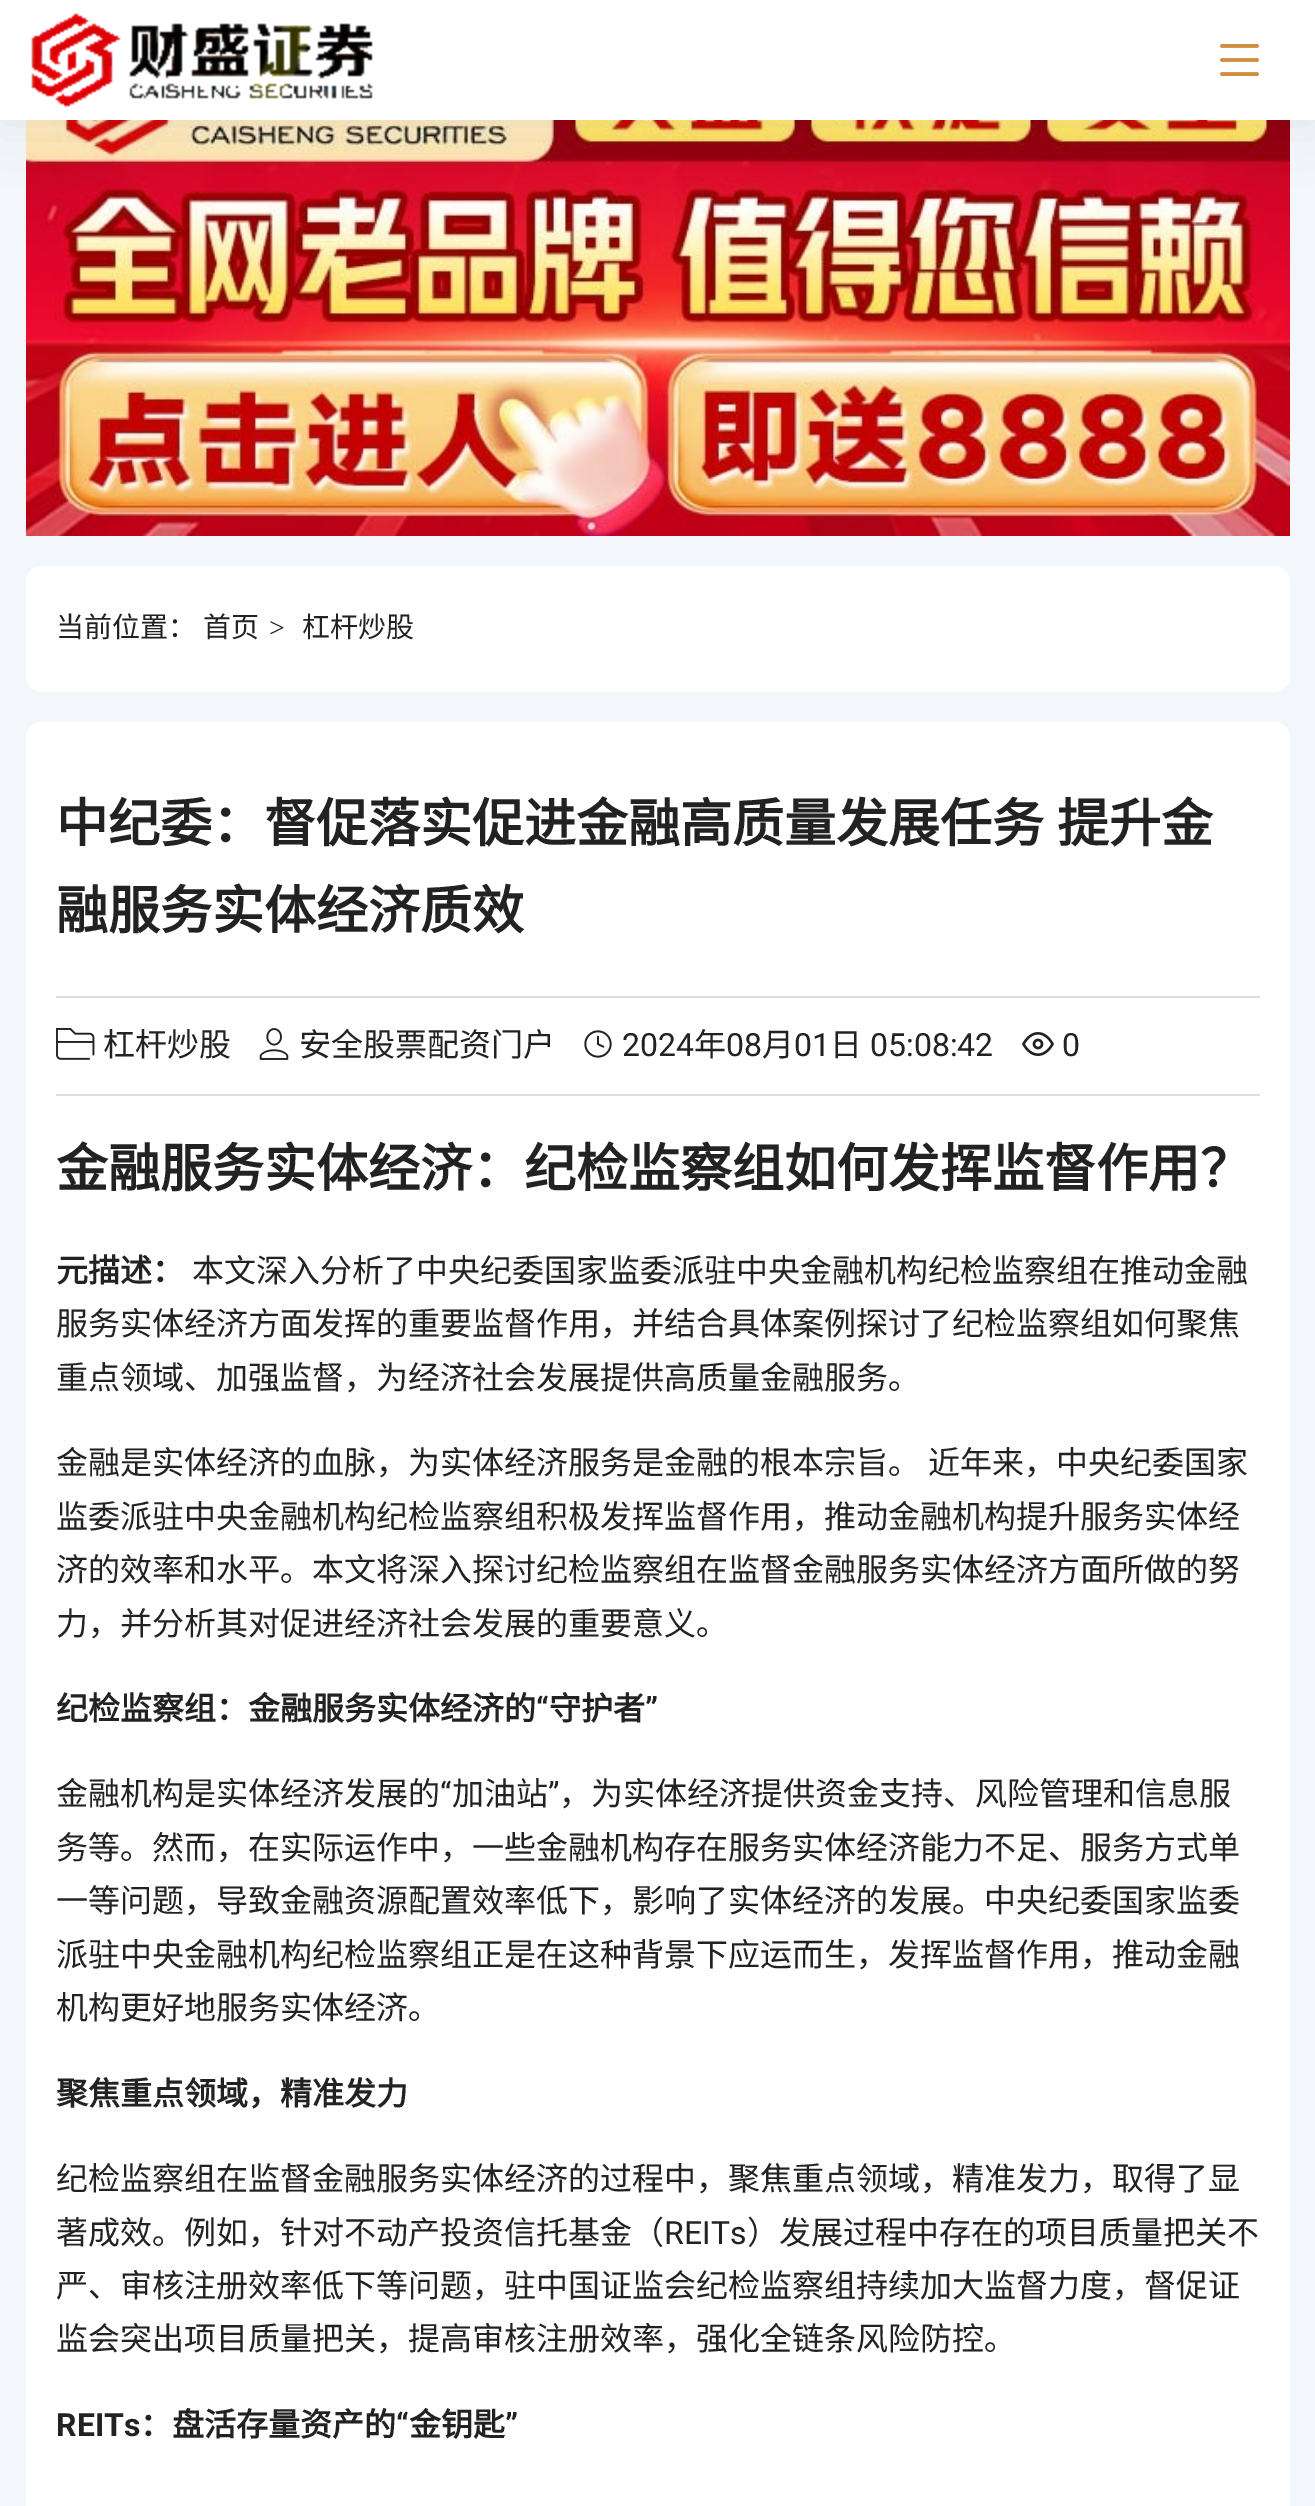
%!PS
<< /PageSize [1315 2506] /PageUsesTransparency true >> setpagedevice
/mt/moveto load def
/fl/fill load def
/co { dup -16 bitshift 255 div exch dup -8 bitshift 255 and 255 div exch 255 and 255 div setrgbcolor } def
/fn { [ exch dup neg 0 0 3 -1 roll 0 0 ] selectfont } def
/tx { co fn moveto show } def
/bx { co rectfill } def
/al { dup .setfillconstantalpha .setstrokeconstantalpha } def
/rr { 5 dict begin { /r /h /w /y /x } { exch def } forall
  x r add y moveto x w add y 2 copy h add r arct x w add y h add x 1 index r arct
  x y h add x y r arct x y 2 copy exch w add exch r arct closepath end } def
/sh { 12 dict begin { /a /b /q /h /w /y /x } { exch def } forall gsave /was 0 def
  9 -2 -9 { dup b mul 4 div /e exch def 1 sub .425 mul 2.718 exch exp 1 add a .99 .min exch div /now exch def
    1 1 now sub 1 was sub div sub al /was now def
    w h .min e 2 mul add 0 gt { x e sub y e sub w e 2 mul add h e 2 mul add
      q e add b .6 mul add w h .min 2 div e add .min 0 .max rr fill } if } for grestore end } def
/im { 5 dict begin { /h /w /y /x /name } { exch def } forall
  gsave x y translate w h scale
  w h 8 [w 0 0 h 0 0] name (r) file false 3 colorimage grestore end } def
0 .pushpdf14devicefilter
0 2506 translate 1 -1 scale
4 setmiterlimit
0 0 1315 2506 16#F3F6FB bx
(media/3.raw) 26 120 1264 416 im
16#000000 co
0 0 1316 120 0 30 .07 sh
0 0 1315 120 16#FFFFFF bx
(media/1.raw) 31 13 342 94 im
(media/2.raw) 1220 44 39 32 im
26 566 1264 126 16 rr fl
26 722 1264 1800 16 rr fl
56 996 1204 2 16#DDDDDD bx
56 1094 1204 2 16#DDDDDD bx
(media/4.raw) 56 1028 39 32 im
(media/5.raw) 259 1028 30 32 im
(media/6.raw) 584 1030 28 28 im
(media/7.raw) 1022 1032 32 24 im
(当前位置：) 56 637 /NotoSansCJKSC-Regular 28 16#222222 tx
(首页) 203 637 /NotoSansCJKSC-Regular 28 16#222222 tx
(>) 269 637 /LiberationSerif-Regular 28 16#222222 tx
(杠杆炒股) 302 637 /NotoSansCJKSC-Regular 28 16#222222 tx
/NotoSansCJKSC-Bold 52 fn
56 842 mt 1 0 32 (中纪委：督促落实促进金融高质量发展任务 提升金) widthshow
(融服务实体经济质效) 56 929 /NotoSansCJKSC-Bold 52 16#222222 tx
(杠杆炒股) 103 1056 /NotoSansCJKSC-Regular 32 16#222222 tx
(安全股票配资门户) 299 1056 /NotoSansCJKSC-Regular 32 16#222222 tx
(2024) 622 1056 /Roboto-Regular 32 16#222222 tx
(年) 694 1056 /NotoSansCJKSC-Regular 32 16#222222 tx
(08) 726 1056 /Roboto-Regular 32 16#222222 tx
(月) 762 1056 /NotoSansCJKSC-Regular 32 16#222222 tx
(01) 794 1056 /Roboto-Regular 32 16#222222 tx
(日) 830 1056 /NotoSansCJKSC-Regular 32 16#222222 tx
(05:08:42) 870 1056 /Roboto-Regular 32 16#222222 tx
(0) 1062 1056 /Roboto-Regular 32 16#222222 tx
(金融服务实体经济：纪检监察组如何发挥监督作用？) 56 1187 /NotoSansCJKSC-Bold 52 16#222222 tx
(元描述：) 56 1282 /NotoSansCJKSC-Bold 32 16#222222 tx
(本文深入分析了中央纪委国家监委派驻中央金融机构纪检监察组在推动金融) 192 1282 /NotoSansCJKSC-Regular 32 16#222222 tx
(服务实体经济方面发挥的重要监督作用，并结合具体案例探讨了纪检监察组如何聚焦) 56 1335 /NotoSansCJKSC-Regular 32 16#222222 tx
(重点领域、加强监督，为经济社会发展提供高质量金融服务。) 56 1389 /NotoSansCJKSC-Regular 32 16#222222 tx
56 1474 mt 1 0 32 (金融是实体经济的血脉，为实体经济服务是金融的根本宗旨。 近年来，中央纪委国家) widthshow
(监委派驻中央金融机构纪检监察组积极发挥监督作用，推动金融机构提升服务实体经) 56 1528 /NotoSansCJKSC-Regular 32 16#222222 tx
(济的效率和水平。本文将深入探讨纪检监察组在监督金融服务实体经济方面所做的努) 56 1581 /NotoSansCJKSC-Regular 32 16#222222 tx
(力，并分析其对促进经济社会发展的重要意义。) 56 1635 /NotoSansCJKSC-Regular 32 16#222222 tx
(纪检监察组：金融服务实体经济的) 56 1720 /NotoSansCJKSC-Bold 32 16#222222 tx
(“) 536 1720 /Roboto-Bold 32 16#222222 tx
(守护者) 549 1720 /NotoSansCJKSC-Bold 32 16#222222 tx
(”) 645 1720 /Roboto-Bold 32 16#222222 tx
(金融机构是实体经济发展的) 56 1805 /NotoSansCJKSC-Regular 32 16#222222 tx
(“) 440 1805 /Roboto-Regular 32 16#222222 tx
(加油站) 452 1805 /NotoSansCJKSC-Regular 32 16#222222 tx
(”) 548 1805 /Roboto-Regular 32 16#222222 tx
(，为实体经济提供资金支持、风险管理和信息服) 559 1805 /NotoSansCJKSC-Regular 32 16#222222 tx
(务等。然而，在实际运作中，一些金融机构存在服务实体经济能力不足、服务方式单) 56 1859 /NotoSansCJKSC-Regular 32 16#222222 tx
(一等问题，导致金融资源配置效率低下，影响了实体经济的发展。中央纪委国家监委) 56 1912 /NotoSansCJKSC-Regular 32 16#222222 tx
(派驻中央金融机构纪检监察组正是在这种背景下应运而生，发挥监督作用，推动金融) 56 1966 /NotoSansCJKSC-Regular 32 16#222222 tx
(机构更好地服务实体经济。) 56 2019 /NotoSansCJKSC-Regular 32 16#222222 tx
(聚焦重点领域，精准发力) 56 2105 /NotoSansCJKSC-Bold 32 16#222222 tx
(纪检监察组在监督金融服务实体经济的过程中，聚焦重点领域，精准发力，取得了显) 56 2190 /NotoSansCJKSC-Regular 32 16#222222 tx
(著成效。例如，针对不动产投资信托基金（) 56 2244 /NotoSansCJKSC-Regular 32 16#222222 tx
(REITs) 664 2244 /Roboto-Regular 32 16#222222 tx
(）发展过程中存在的项目质量把关不) 747 2244 /NotoSansCJKSC-Regular 32 16#222222 tx
(严、审核注册效率低下等问题，驻中国证监会纪检监察组持续加大监督力度，督促证) 56 2297 /NotoSansCJKSC-Regular 32 16#222222 tx
(监会突出项目质量把关，提高审核注册效率，强化全链条风险防控。) 56 2350 /NotoSansCJKSC-Regular 32 16#222222 tx
(REITs) 56 2436 /Roboto-Bold 32 16#222222 tx
(：盘活存量资产的) 140 2436 /NotoSansCJKSC-Bold 32 16#222222 tx
(“) 396 2436 /Roboto-Bold 32 16#222222 tx
(金钥匙) 409 2436 /NotoSansCJKSC-Bold 32 16#222222 tx
(”) 505 2436 /Roboto-Bold 32 16#222222 tx
.poppdf14devicefilter showpage
